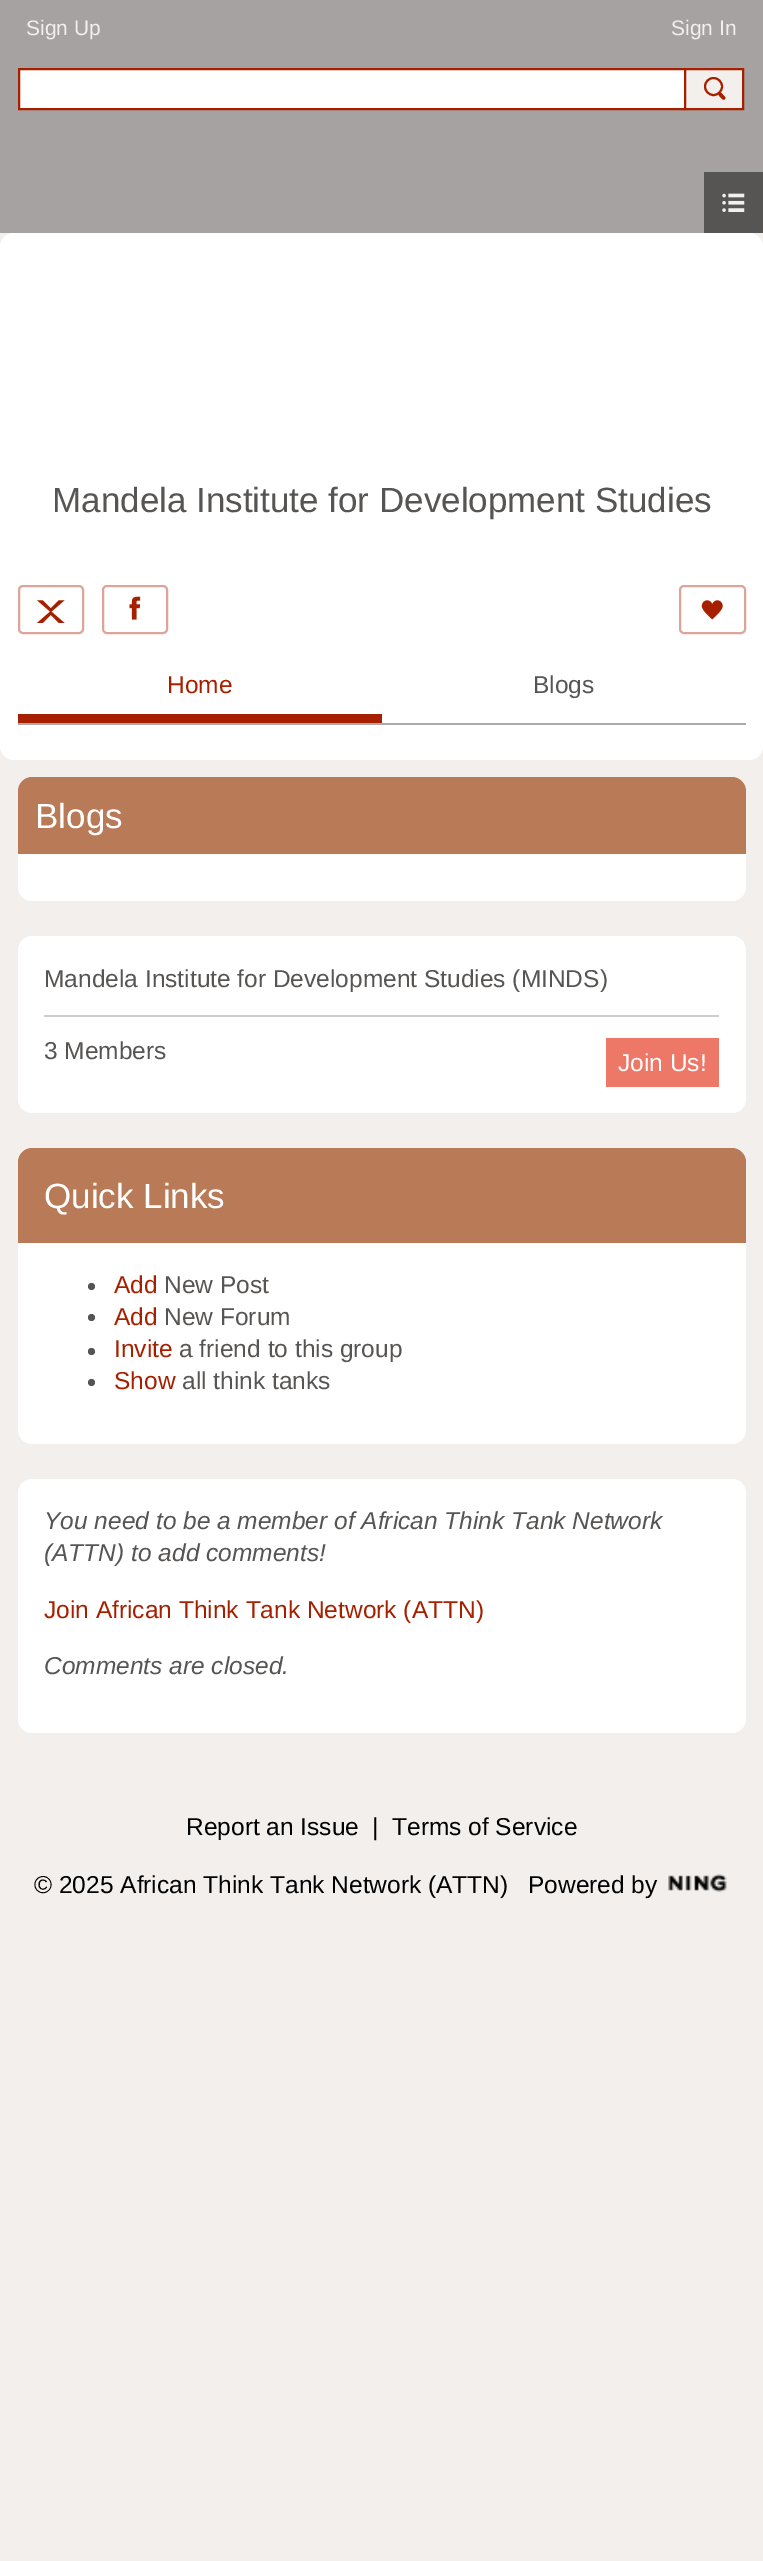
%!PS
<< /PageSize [763 2561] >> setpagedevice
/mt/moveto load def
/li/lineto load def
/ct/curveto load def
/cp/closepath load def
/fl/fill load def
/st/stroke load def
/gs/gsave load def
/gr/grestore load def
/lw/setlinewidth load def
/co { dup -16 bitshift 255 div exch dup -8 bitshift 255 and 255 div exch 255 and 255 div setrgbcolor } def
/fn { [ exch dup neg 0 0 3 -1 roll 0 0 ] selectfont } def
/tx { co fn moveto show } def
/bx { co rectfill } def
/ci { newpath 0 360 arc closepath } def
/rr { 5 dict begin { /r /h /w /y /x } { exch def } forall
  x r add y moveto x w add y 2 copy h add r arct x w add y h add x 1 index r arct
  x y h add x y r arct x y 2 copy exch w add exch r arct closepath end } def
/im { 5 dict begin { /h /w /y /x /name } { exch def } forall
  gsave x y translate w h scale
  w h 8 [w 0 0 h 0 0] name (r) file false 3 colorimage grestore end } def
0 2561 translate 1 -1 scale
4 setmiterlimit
0 0 763 2561 16#F2EFED bx
0 0 763 233 16#A6A2A1 bx
16#FFFFFF co
19 69 mt 685 69 li 685 109 li 19 109 li cp gs fl gr
16#A62000 co
2 lw
st
16#F2EFED co
685 69 mt 743 69 li 743 109 li 685 109 li cp gs fl gr
16#A62000 co
st
713.5 86.5 8.5 ci st
721.5 93 mt 725 97 li 725.5 97.5 725.5 98.5 725 99 ct 723.5 101.5 720 97 719 95.5 ct 717 94 719.5 91.5 721.5 93 ct cp fl
704 172 59 61 16#575554 bx
(media/1.raw) 722 193 23 19 im
16#FFFFFF co
0 233 763 527 14 rr fl
16#DBA699 co
19 586 64 47 4 rr st
(media/2.raw) 36 600 29 23 im
103 586 64 47 4 rr st
(media/3.raw) 129 596 12 24 im
680 586 65 47 4 rr st
(media/4.raw) 701 600 22 20 im
18 723 728 2 16#AAAAAA bx
18 714 364 9 16#A62000 bx
16#FFFFFF co
18 777 728 124 14 rr fl
16#B97A57 co
32 777 mt 732 777 li 739.5 777 746 783.5 746 791 ct 746 854 li 18 854 li 18 791 li 18 783.5 24.5 777 32 777 ct cp fl
16#FFFFFF co
18 936 728 177 14 rr fl
44 1015 675 2 16#CCCCCC bx
606 1038 113 49 16#ED7868 bx
16#FFFFFF co
18 1148 728 296 14 rr fl
16#B97A57 co
32 1148 mt 732 1148 li 739.5 1148 746 1154.5 746 1162 ct 746 1243 li 18 1243 li 18 1162 li 18 1154.5 24.5 1148 32 1148 ct cp fl
16#575554 co
91.5 1286.5 3.5 ci fl
91.5 1317.5 3.5 ci fl
91.5 1351.5 3.5 ci fl
91.5 1382.5 3.5 ci fl
16#FFFFFF co
18 1479 728 254 14 rr fl
(media/5.raw) 668 1874 59 19 im
(Sign Up) 26 35 /LiberationSans-Regular 21 16#F2EFED tx
(Sign In) 671 35 /LiberationSans-Regular 21 16#F2EFED tx
(Mandela Institute for Development Studies) 52 512 /LiberationSans-Regular 35 16#575554 tx
(Home) 167 693 /LiberationSans-Regular 24.5 16#A62000 tx
(Blogs) 533 693 /LiberationSans-Regular 24.5 16#575554 tx
(Blogs) 35 828 /LiberationSans-Regular 35 16#FFFFFF tx
(Mandela Institute for Development Studies \(MINDS\)) 44 987 /LiberationSans-Regular 24.5 16#575554 tx
(3 Members) 44 1059 /LiberationSans-Regular 24.5 16#575554 tx
(Join Us!) 618 1071 /LiberationSans-Regular 24.5 16#FFFFFF tx
(Quick Links) 44 1208 /LiberationSans-Regular 35 16#FFFFFF tx
(Add) 114 1293 /LiberationSans-Regular 24.5 16#A62000 tx
(New Post) 164 1293 /LiberationSans-Regular 24.5 16#575554 tx
(Add) 114 1325 /LiberationSans-Regular 24.5 16#A62000 tx
(New Forum) 164 1325 /LiberationSans-Regular 24.5 16#575554 tx
(Invite) 114 1357 /LiberationSans-Regular 24.5 16#A62000 tx
(a friend to this group) 179 1357 /LiberationSans-Regular 24.5 16#575554 tx
(Show) 114 1389 /LiberationSans-Regular 24.5 16#A62000 tx
(all think tanks) 182 1389 /LiberationSans-Regular 24.5 16#575554 tx
(You need to be a member of African Think Tank Network) 44 1529 /LiberationSans-Italic 24.5 16#575554 tx
(\(ATTN\) to add comments!) 44 1561 /LiberationSans-Italic 24.5 16#575554 tx
(Join African Think Tank Network \(ATTN\)) 44 1618 /LiberationSans-Regular 24.5 16#A62000 tx
(Comments are closed.) 44 1674 /LiberationSans-Italic 24.5 16#575554 tx
(Report an Issue) 186 1835 /LiberationSans-Regular 24.5 16#000000 tx
(|) 372 1835 /LiberationSans-Regular 24.5 16#000000 tx
(Terms of Service) 392 1835 /LiberationSans-Regular 24.5 16#000000 tx
(© 2025 African Think Tank Network \(ATTN\)) 34 1893 /LiberationSans-Regular 24.5 16#000000 tx
(Powered by) 528 1893 /LiberationSans-Regular 24.5 16#000000 tx
showpage
